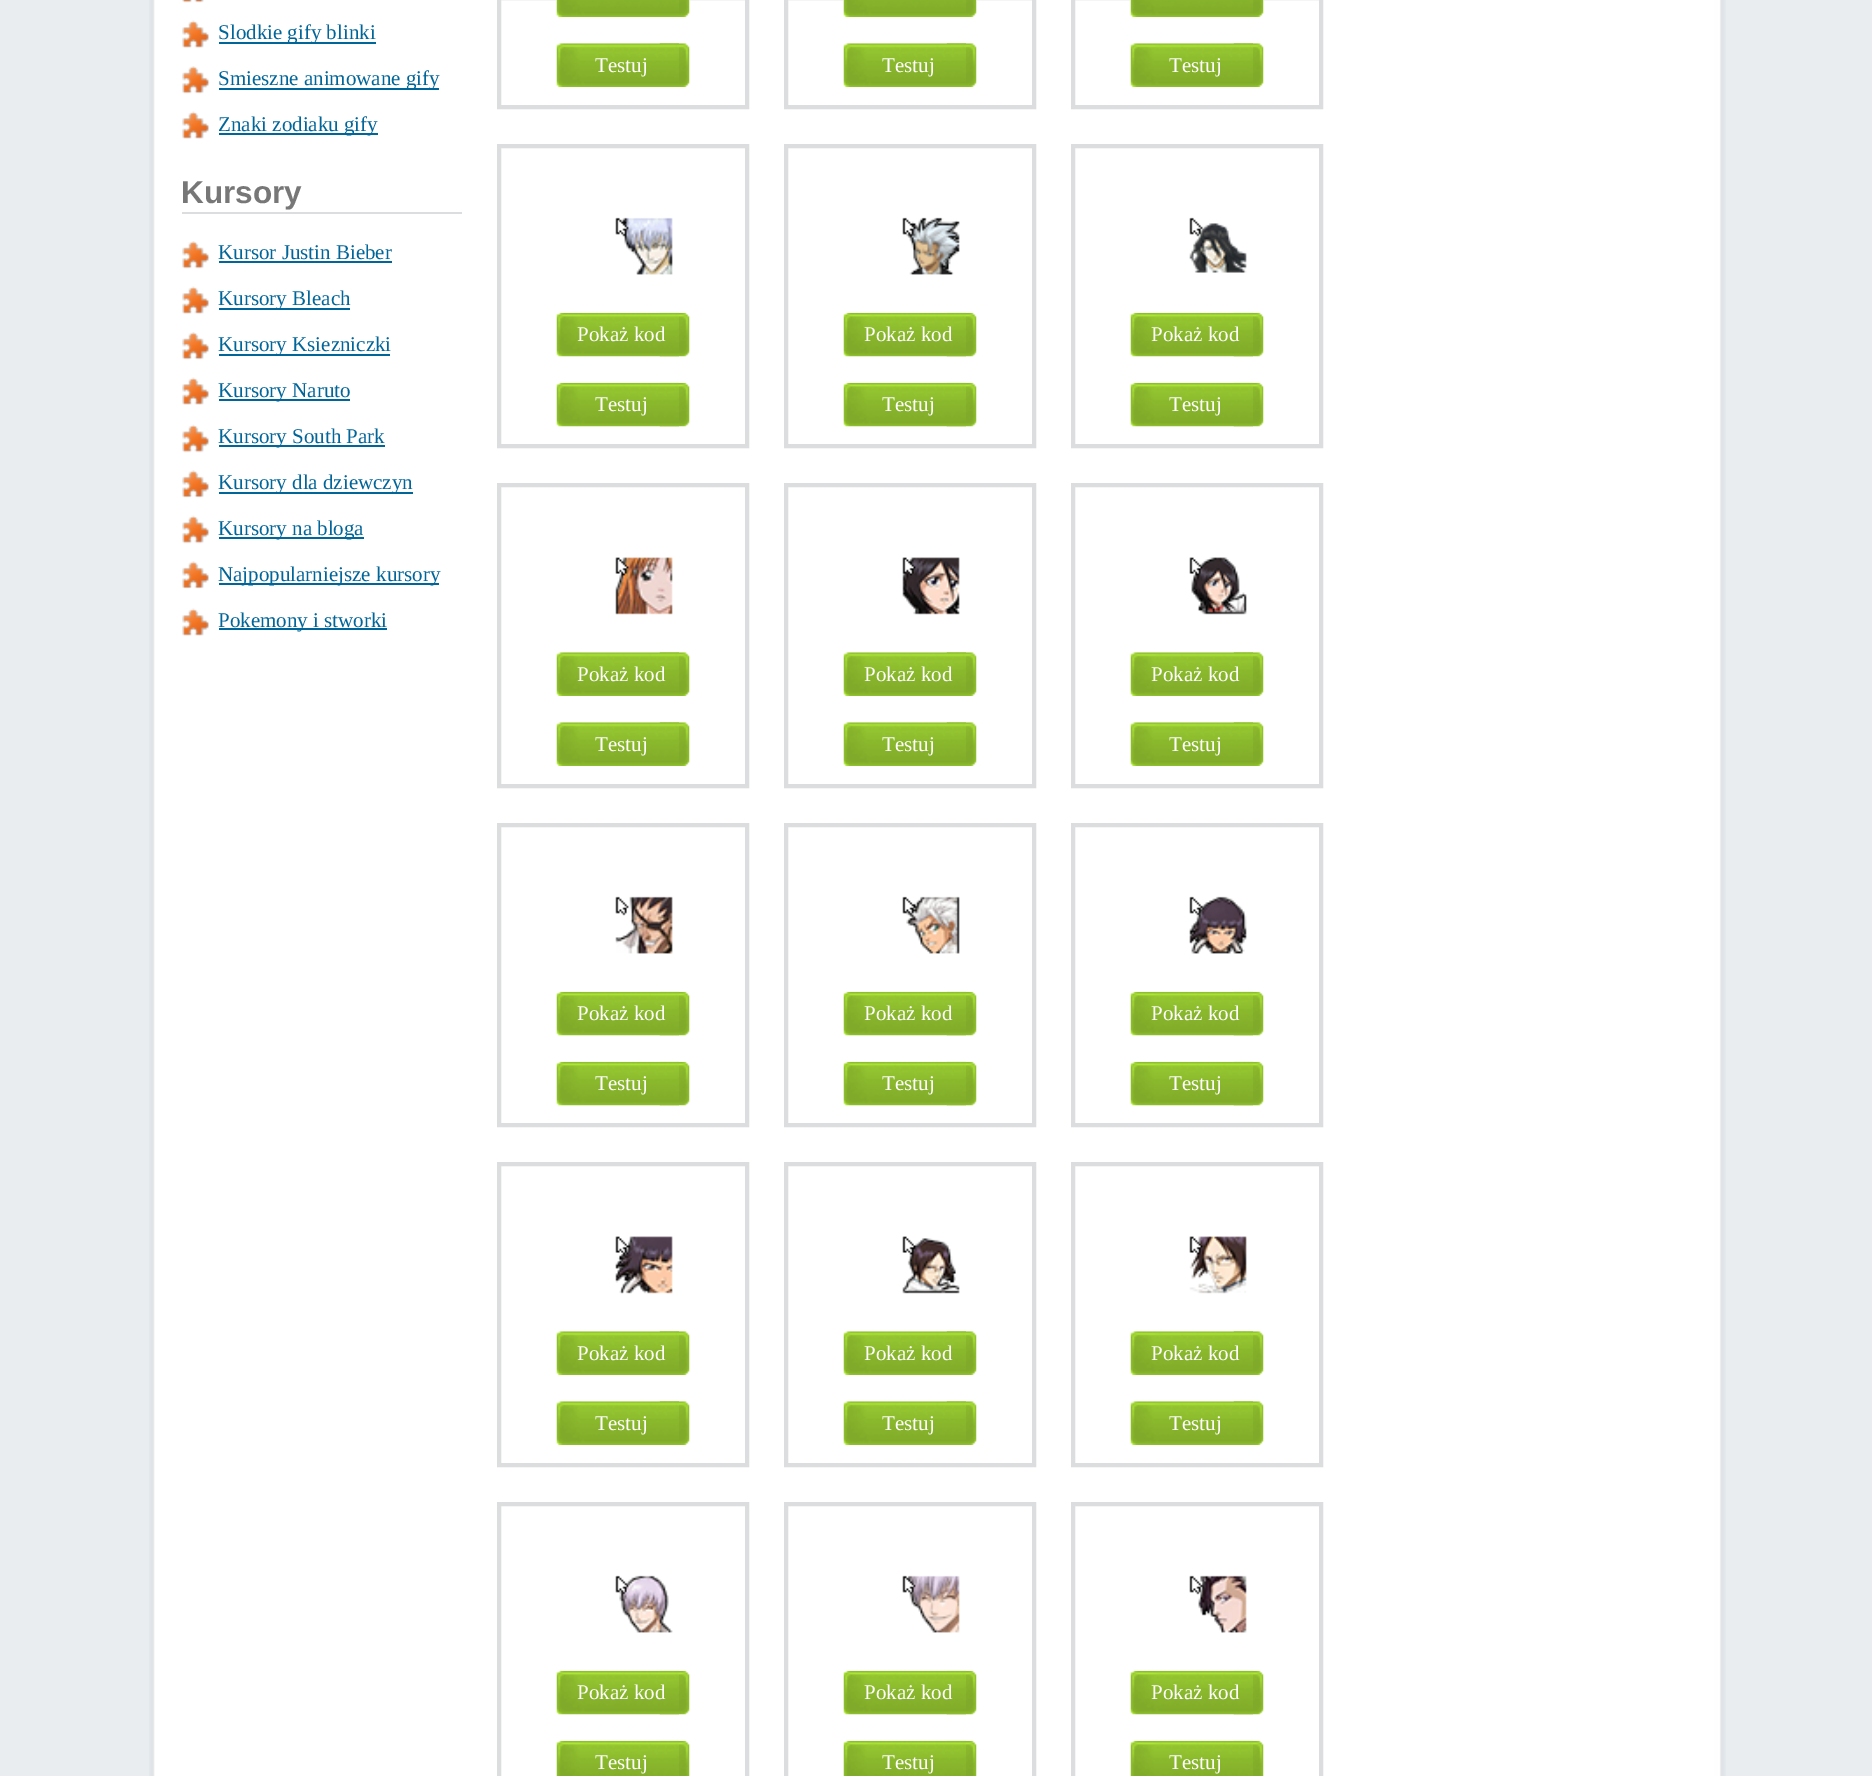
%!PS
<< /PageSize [1872 1776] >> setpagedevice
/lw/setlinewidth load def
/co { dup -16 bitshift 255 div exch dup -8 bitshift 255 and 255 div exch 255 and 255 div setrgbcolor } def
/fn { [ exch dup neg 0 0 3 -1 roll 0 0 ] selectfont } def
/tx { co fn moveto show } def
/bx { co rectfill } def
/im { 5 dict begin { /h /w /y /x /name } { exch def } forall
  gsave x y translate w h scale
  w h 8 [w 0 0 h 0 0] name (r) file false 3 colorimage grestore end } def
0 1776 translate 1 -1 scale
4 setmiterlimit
0 0 1872 1776 16#E9EDF0 bx
(media/1.raw) 149 0 1577 1776 im
(media/2.raw) 182 0 22 3 im
(media/3.raw) 182 20 27 28 im
219 42 157 2 16#006599 bx
(media/4.raw) 182 66 28 28 im
219 88 220 2 16#006599 bx
(media/3.raw) 182 111 27 28 im
219 133 159 2 16#006599 bx
182 212 280 2 16#DCDDDE bx
(media/4.raw) 182 241 28 28 im
219 261 173 2 16#006599 bx
(media/3.raw) 182 286 27 28 im
219 308 131 2 16#006599 bx
(media/4.raw) 182 332 28 28 im
219 354 171 2 16#006599 bx
(media/3.raw) 182 377 27 28 im
219 399 131 2 16#006599 bx
(media/5.raw) 182 424 28 29 im
219 445 166 2 16#006599 bx
(media/6.raw) 182 470 27 28 im
219 492 194 2 16#006599 bx
(media/7.raw) 182 515 28 29 im
219 537 145 2 16#006599 bx
(media/8.raw) 182 561 27 28 im
219 583 220 2 16#006599 bx
(media/3.raw) 182 608 27 28 im
219 628 168 2 16#006599 bx
16#DCDDDE co
4 lw
499 -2 248 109 rectstroke
(media/9.raw) 679 0 11 17 im
(media/10.raw) 556 0 123 17 im
(media/11.raw) 659 43 31 44 im
(media/12.raw) 556 43 123 44 im
786 -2 248 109 rectstroke
(media/9.raw) 966 0 11 17 im
(media/10.raw) 843 0 123 17 im
(media/11.raw) 946 43 31 44 im
(media/13.raw) 843 43 123 44 im
1073 -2 248 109 rectstroke
(media/9.raw) 1253 0 11 17 im
(media/14.raw) 1130 0 123 17 im
(media/11.raw) 1233 43 31 44 im
(media/15.raw) 1130 43 123 44 im
499 146 248 300 rectstroke
(media/16.raw) 615 217 58 58 im
(media/17.raw) 659 312 31 45 im
(media/18.raw) 556 312 123 45 im
(media/17.raw) 659 382 31 45 im
(media/18.raw) 556 382 123 45 im
786 146 248 300 rectstroke
(media/19.raw) 902 217 58 58 im
(media/17.raw) 946 312 31 45 im
(media/20.raw) 843 312 123 45 im
(media/17.raw) 946 382 31 45 im
(media/20.raw) 843 382 123 45 im
1073 146 248 300 rectstroke
(media/21.raw) 1189 217 58 56 im
(media/17.raw) 1233 312 31 45 im
(media/22.raw) 1130 312 123 45 im
(media/17.raw) 1233 382 31 45 im
(media/22.raw) 1130 382 123 45 im
499 485 248 301 rectstroke
(media/23.raw) 615 557 58 58 im
(media/11.raw) 659 652 31 44 im
(media/12.raw) 556 652 123 44 im
(media/11.raw) 659 722 31 44 im
(media/12.raw) 556 722 123 44 im
786 485 248 301 rectstroke
(media/24.raw) 902 557 58 58 im
(media/11.raw) 946 652 31 44 im
(media/13.raw) 843 652 123 44 im
(media/11.raw) 946 722 31 44 im
(media/13.raw) 843 722 123 44 im
1073 485 248 301 rectstroke
(media/25.raw) 1189 557 58 58 im
(media/11.raw) 1233 652 31 44 im
(media/15.raw) 1130 652 123 44 im
(media/11.raw) 1233 722 31 44 im
(media/15.raw) 1130 722 123 44 im
499 825 248 300 rectstroke
(media/26.raw) 615 896 58 58 im
(media/17.raw) 659 991 31 45 im
(media/18.raw) 556 991 123 45 im
(media/17.raw) 659 1061 31 45 im
(media/18.raw) 556 1061 123 45 im
786 825 248 300 rectstroke
(media/27.raw) 902 896 58 58 im
(media/17.raw) 946 991 31 45 im
(media/20.raw) 843 991 123 45 im
(media/17.raw) 946 1061 31 45 im
(media/20.raw) 843 1061 123 45 im
1073 825 248 300 rectstroke
(media/28.raw) 1189 896 58 58 im
(media/17.raw) 1233 991 31 45 im
(media/22.raw) 1130 991 123 45 im
(media/17.raw) 1233 1061 31 45 im
(media/22.raw) 1130 1061 123 45 im
499 1164 248 301 rectstroke
(media/29.raw) 615 1236 58 58 im
(media/11.raw) 659 1331 31 44 im
(media/12.raw) 556 1331 123 44 im
(media/11.raw) 659 1401 31 44 im
(media/12.raw) 556 1401 123 44 im
786 1164 248 301 rectstroke
(media/30.raw) 902 1236 58 58 im
(media/11.raw) 946 1331 31 44 im
(media/13.raw) 843 1331 123 44 im
(media/11.raw) 946 1401 31 44 im
(media/13.raw) 843 1401 123 44 im
1073 1164 248 301 rectstroke
(media/31.raw) 1189 1236 58 58 im
(media/11.raw) 1233 1331 31 44 im
(media/15.raw) 1130 1331 123 44 im
(media/11.raw) 1233 1401 31 44 im
(media/15.raw) 1130 1401 123 44 im
499 1504 248 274 rectstroke
(media/32.raw) 615 1575 58 58 im
(media/17.raw) 659 1670 31 45 im
(media/18.raw) 556 1670 123 45 im
(media/33.raw) 660 1740 30 36 im
(media/34.raw) 556 1740 123 36 im
786 1504 248 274 rectstroke
(media/35.raw) 902 1575 58 58 im
(media/17.raw) 946 1670 31 45 im
(media/20.raw) 843 1670 123 45 im
(media/33.raw) 947 1740 30 36 im
(media/36.raw) 843 1740 123 36 im
1073 1504 248 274 rectstroke
(media/37.raw) 1189 1575 58 58 im
(media/17.raw) 1233 1670 31 45 im
(media/22.raw) 1130 1670 123 45 im
(media/33.raw) 1234 1740 30 36 im
(media/38.raw) 1130 1740 123 36 im
(Slodkie gify blinki) 218 39 /LiberationSerif-Regular 21 16#006599 tx
(Smieszne animowane gify) 218 85 /LiberationSerif-Regular 21 16#006599 tx
(Znaki zodiaku gify) 218 131 /LiberationSerif-Regular 21 16#006599 tx
(Kursory) 181 203 /LiberationSans-Bold 31.5 16#777777 tx
(Kursor Justin Bieber) 218 259 /LiberationSerif-Regular 21 16#006599 tx
(Kursory Bleach) 218 305 /LiberationSerif-Regular 21 16#006599 tx
(Kursory Ksiezniczki) 218 351 /LiberationSerif-Regular 21 16#006599 tx
(Kursory Naruto) 218 397 /LiberationSerif-Regular 21 16#006599 tx
(Kursory South Park) 218 443 /LiberationSerif-Regular 21 16#006599 tx
(Kursory dla dziewczyn) 218 489 /LiberationSerif-Regular 21 16#006599 tx
(Kursory na bloga) 218 535 /LiberationSerif-Regular 21 16#006599 tx
(Najpopularniejsze kursory) 218 581 /LiberationSerif-Regular 21 16#006599 tx
(Pokemony i stworki) 218 627 /LiberationSerif-Regular 21 16#006599 tx
(Testuj) 595 72 /LiberationSerif-Regular 21 16#FFFFFF tx
(Testuj) 882 72 /LiberationSerif-Regular 21 16#FFFFFF tx
(Testuj) 1169 72 /LiberationSerif-Regular 21 16#FFFFFF tx
(Pokaż kod) 577 341 /LiberationSerif-Regular 21 16#FFFFFF tx
(Testuj) 595 411 /LiberationSerif-Regular 21 16#FFFFFF tx
(Pokaż kod) 864 341 /LiberationSerif-Regular 21 16#FFFFFF tx
(Testuj) 882 411 /LiberationSerif-Regular 21 16#FFFFFF tx
(Pokaż kod) 1151 341 /LiberationSerif-Regular 21 16#FFFFFF tx
(Testuj) 1169 411 /LiberationSerif-Regular 21 16#FFFFFF tx
(Pokaż kod) 577 681 /LiberationSerif-Regular 21 16#FFFFFF tx
(Testuj) 595 751 /LiberationSerif-Regular 21 16#FFFFFF tx
(Pokaż kod) 864 681 /LiberationSerif-Regular 21 16#FFFFFF tx
(Testuj) 882 751 /LiberationSerif-Regular 21 16#FFFFFF tx
(Pokaż kod) 1151 681 /LiberationSerif-Regular 21 16#FFFFFF tx
(Testuj) 1169 751 /LiberationSerif-Regular 21 16#FFFFFF tx
(Pokaż kod) 577 1020 /LiberationSerif-Regular 21 16#FFFFFF tx
(Testuj) 595 1090 /LiberationSerif-Regular 21 16#FFFFFF tx
(Pokaż kod) 864 1020 /LiberationSerif-Regular 21 16#FFFFFF tx
(Testuj) 882 1090 /LiberationSerif-Regular 21 16#FFFFFF tx
(Pokaż kod) 1151 1020 /LiberationSerif-Regular 21 16#FFFFFF tx
(Testuj) 1169 1090 /LiberationSerif-Regular 21 16#FFFFFF tx
(Pokaż kod) 577 1360 /LiberationSerif-Regular 21 16#FFFFFF tx
(Testuj) 595 1430 /LiberationSerif-Regular 21 16#FFFFFF tx
(Pokaż kod) 864 1360 /LiberationSerif-Regular 21 16#FFFFFF tx
(Testuj) 882 1430 /LiberationSerif-Regular 21 16#FFFFFF tx
(Pokaż kod) 1151 1360 /LiberationSerif-Regular 21 16#FFFFFF tx
(Testuj) 1169 1430 /LiberationSerif-Regular 21 16#FFFFFF tx
(Pokaż kod) 577 1699 /LiberationSerif-Regular 21 16#FFFFFF tx
(Testuj) 595 1769 /LiberationSerif-Regular 21 16#FFFFFF tx
(Pokaż kod) 864 1699 /LiberationSerif-Regular 21 16#FFFFFF tx
(Testuj) 882 1769 /LiberationSerif-Regular 21 16#FFFFFF tx
(Pokaż kod) 1151 1699 /LiberationSerif-Regular 21 16#FFFFFF tx
(Testuj) 1169 1769 /LiberationSerif-Regular 21 16#FFFFFF tx
showpage
